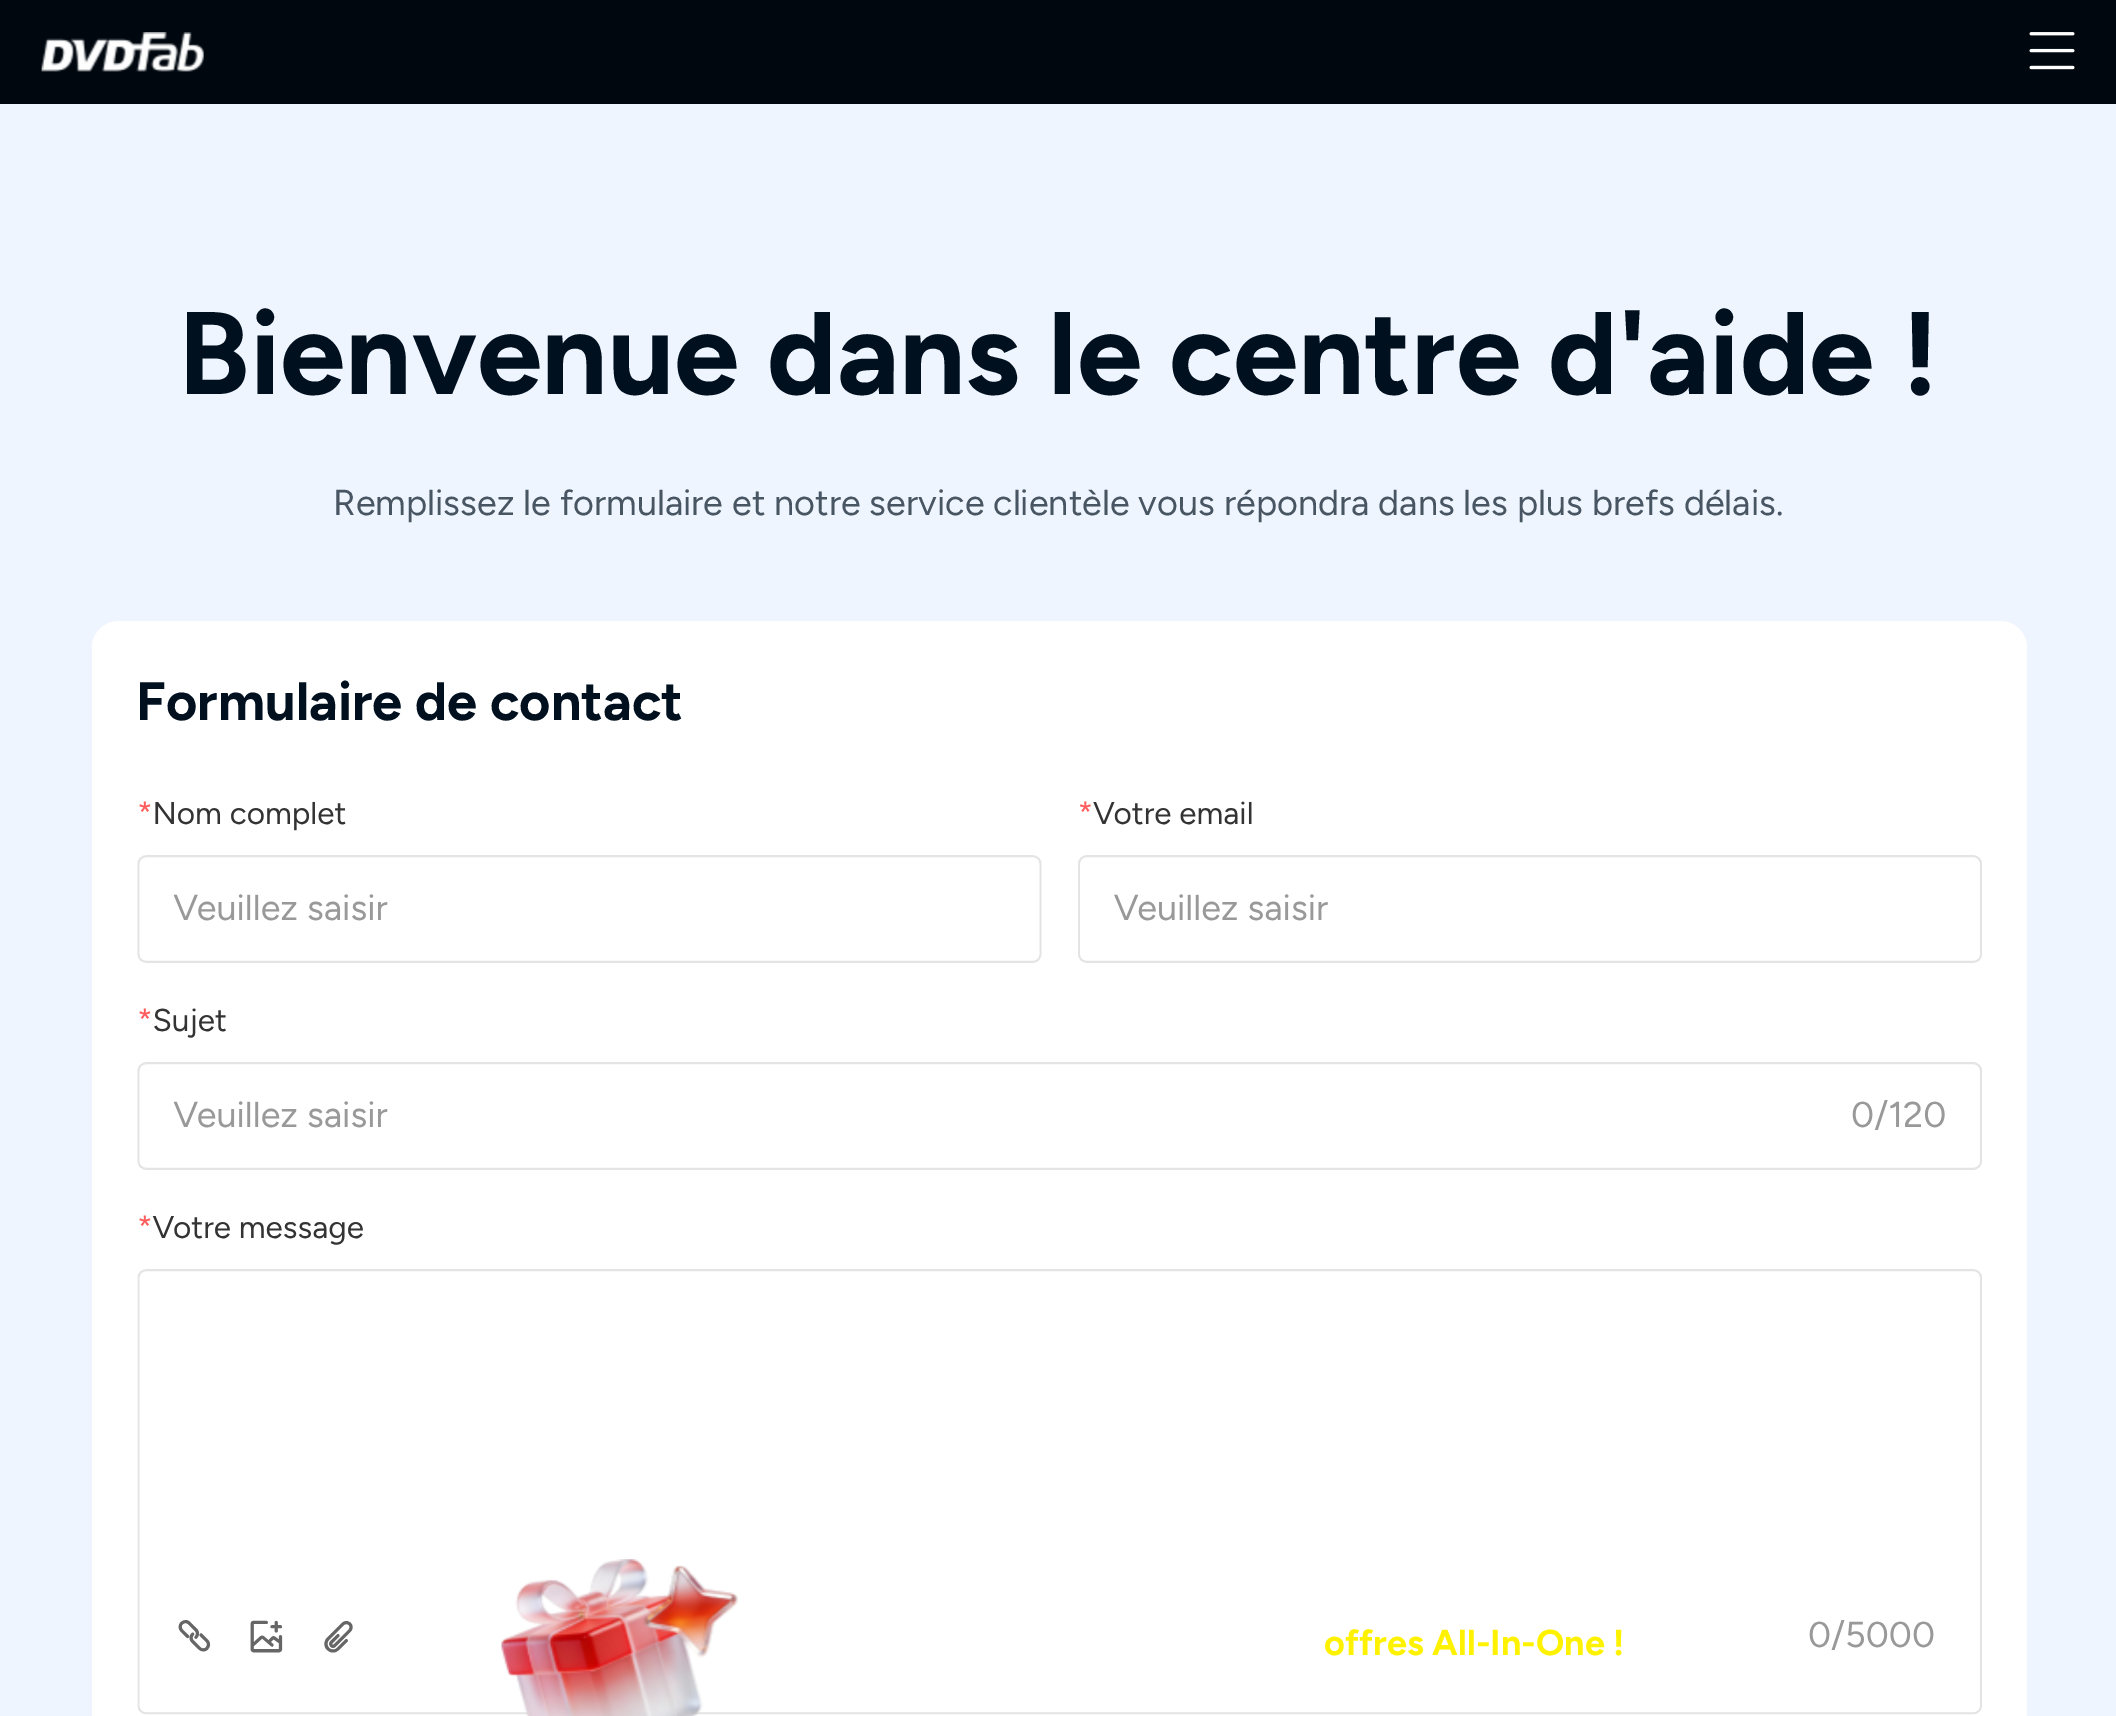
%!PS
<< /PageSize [2116 1716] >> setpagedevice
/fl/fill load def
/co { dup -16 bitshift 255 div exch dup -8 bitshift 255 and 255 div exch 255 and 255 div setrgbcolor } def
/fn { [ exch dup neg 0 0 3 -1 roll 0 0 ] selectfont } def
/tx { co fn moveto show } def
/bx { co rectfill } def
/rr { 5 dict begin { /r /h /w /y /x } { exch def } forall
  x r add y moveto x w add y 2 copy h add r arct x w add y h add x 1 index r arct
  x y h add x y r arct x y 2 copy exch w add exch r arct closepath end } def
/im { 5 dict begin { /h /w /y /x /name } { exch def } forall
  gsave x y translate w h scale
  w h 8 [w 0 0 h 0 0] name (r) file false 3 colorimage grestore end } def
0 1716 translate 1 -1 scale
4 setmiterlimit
0 0 2116 1716 16#EFF5FF bx
0 0 2116 104 16#00070F bx
(media/1.raw) 41 32 163 40 im
(media/2.raw) 2029 32 46 38 im
16#FFFFFF co
92 621 1935 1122 27 rr fl
(media/3.raw) 137 801 1845 914 im
(media/4.raw) 500 1559 239 157 im
(Bienvenue dans le centre d'aide !) 178 394 /Figtree-Bold 117 16#00101F tx
(Remplissez le formulaire et notre service clientèle vous répondra dans les plus brefs délais.) 333 515 /Figtree-Light 36 16#485562 tx
(Formulaire de contact) 136 720 /Figtree-Bold 54 16#00101F tx
(offres All-In-One !) 1324 1655 /Figtree-Bold 36 16#FFF200 tx
showpage
